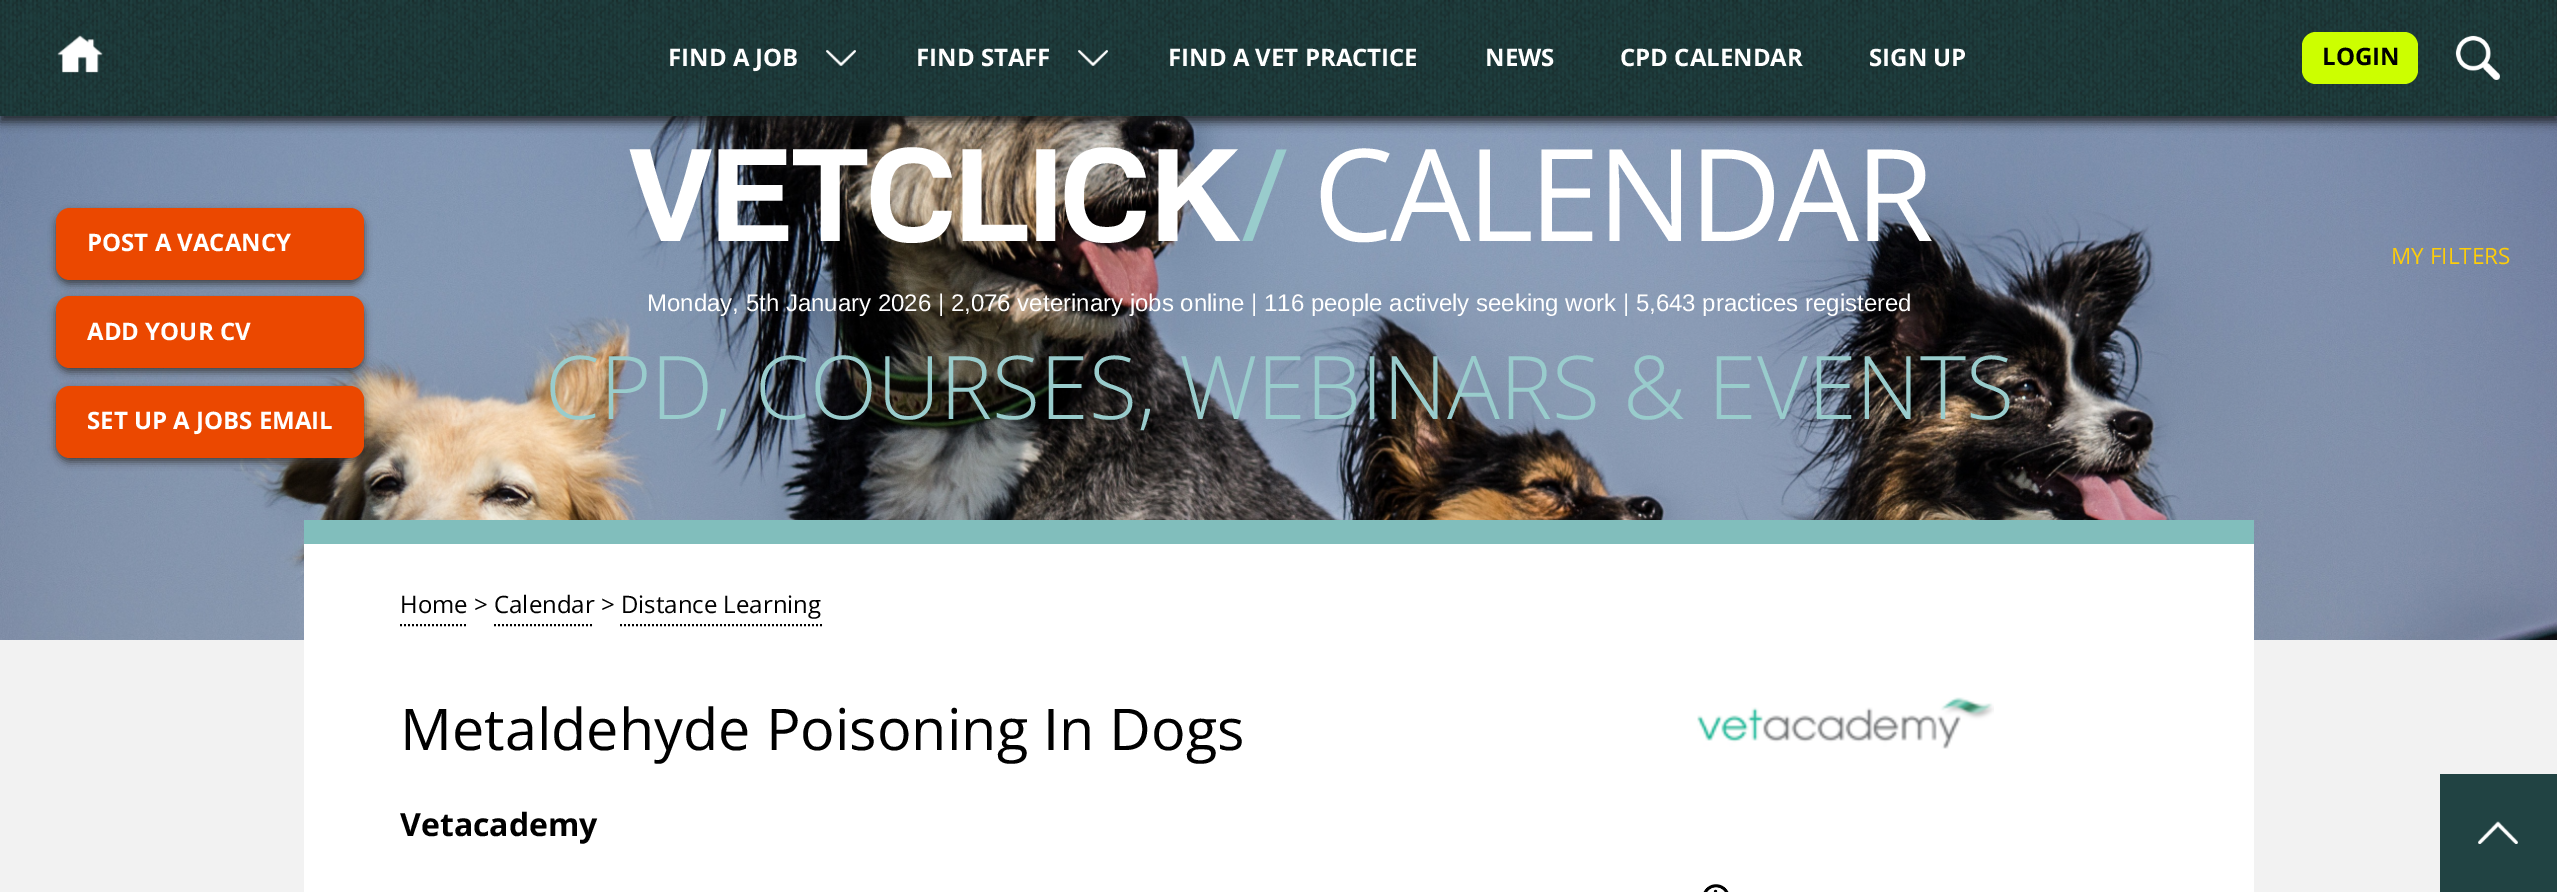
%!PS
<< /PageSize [2557 892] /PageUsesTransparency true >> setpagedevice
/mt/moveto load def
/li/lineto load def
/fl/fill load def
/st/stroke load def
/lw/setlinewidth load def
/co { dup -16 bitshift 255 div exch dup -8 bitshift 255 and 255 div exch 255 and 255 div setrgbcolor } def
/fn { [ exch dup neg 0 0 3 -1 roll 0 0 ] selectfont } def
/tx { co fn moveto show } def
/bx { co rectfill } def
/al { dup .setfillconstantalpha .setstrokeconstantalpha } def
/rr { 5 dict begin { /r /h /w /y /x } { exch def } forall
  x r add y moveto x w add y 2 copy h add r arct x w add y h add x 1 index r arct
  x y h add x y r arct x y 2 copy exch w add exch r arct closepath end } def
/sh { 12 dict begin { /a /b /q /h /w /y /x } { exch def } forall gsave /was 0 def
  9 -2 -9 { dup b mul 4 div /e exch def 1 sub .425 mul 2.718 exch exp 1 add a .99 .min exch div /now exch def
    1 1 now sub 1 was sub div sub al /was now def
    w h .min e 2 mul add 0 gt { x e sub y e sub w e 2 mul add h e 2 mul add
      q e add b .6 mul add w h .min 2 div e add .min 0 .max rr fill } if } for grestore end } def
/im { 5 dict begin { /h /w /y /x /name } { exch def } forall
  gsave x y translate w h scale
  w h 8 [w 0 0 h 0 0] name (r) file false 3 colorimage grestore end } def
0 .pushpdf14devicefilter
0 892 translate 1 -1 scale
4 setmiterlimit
0 0 2557 892 16#F2F2F2 bx
(media/6.raw) 0 116 2557 524 im
16#141414 co
0 6 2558 116 0 5 .8 sh
0 0 2557 116 16#214343 bx
(media/3.raw) 0 0 2557 116 im
(media/1.raw) 826 50 30 16 im
(media/2.raw) 1078 50 30 16 im
(media/4.raw) 57 35 46 38 im
16#CCFF00 co
2302 32 116 52 14 rr fl
(media/5.raw) 2455 35 45 45 im
16#323232 co
56 212 308 72 14 4 .8 sh
16#EB4800 co
56 208 308 72 14 rr fl
16#323232 co
56 300 308 72 14 4 .8 sh
16#EB4800 co
56 296 308 72 14 rr fl
16#323232 co
56 390 308 72 14 4 .8 sh
16#EB4800 co
56 386 308 72 14 rr fl
304 544 1950 348 16#FFFFFF bx
304 520 1950 24 16#81BEBC bx
16#000000 co
2 lw
[2 2] 0 setdash
400 625 mt 468 625 li st
494 625 mt 594 625 li st
620 625 mt 822 625 li st
(media/7.raw) 1697 697 297 52 im
(media/8.raw) 1703 884 26 8 im
2440 774 117 118 16#214343 bx
(media/9.raw) 2478 821 40 23 im
(FIND A JOB) 668 66 /OpenSans-Bold 24 16#FFFFFF tx
(FIND STAFF) 916 66 /OpenSans-Bold 24 16#FFFFFF tx
(FIND A VET PRACTICE) 1168 66 /OpenSans-Bold 24 16#FFFFFF tx
(NEWS) 1485 66 /OpenSans-Bold 24 16#FFFFFF tx
(CPD CALENDAR) 1620 66 /OpenSans-Bold 24 16#FFFFFF tx
(SIGN UP) 1869 66 /OpenSans-Bold 24 16#FFFFFF tx
(LOGIN) 2322 65 /OpenSans-Bold 24 16#000000 tx
(POST A VACANCY) 87 251 /OpenSans-Bold 24 16#FFFFFF tx
(ADD YOUR CV) 87 340 /OpenSans-Bold 24 16#FFFFFF tx
(SET UP A JOBS EMAIL) 87 429 /OpenSans-Bold 24 16#FFFFFF tx
/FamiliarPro-Bold 128 fn
628 241 mt -4 0 (VETCLICK) ashow
/OpenSans-Regular 128 fn
16#99CCCC co
1241 241 mt -4 0 (/) ashow
16#FFFFFF co
1313 241 mt -4 0 (CALENDAR) ashow
(Monday, 5th January 2026 | 2,076 veterinary jobs online | 116 people actively seeking work | 5,643 practices registered) 647 311 /LiberationSans-Regular 24 16#FFFFFF tx
(CPD, COURSES, WEBINARS & EVENTS) 545 419 /OpenSans-Light 88 16#99CCCC tx
(MY FILTERS) 2391 264 /OpenSans-Regular 22.5 16#FECD09 tx
(Home > Calendar > Distance Learning) 400 613 /OpenSans-Regular 24 16#000000 tx
(Metaldehyde Poisoning In Dogs) 400 750 /OpenSans-Regular 57.6 16#000000 tx
(Vetacademy) 400 836 /OpenSans-Bold 32 16#000000 tx
.poppdf14devicefilter showpage
